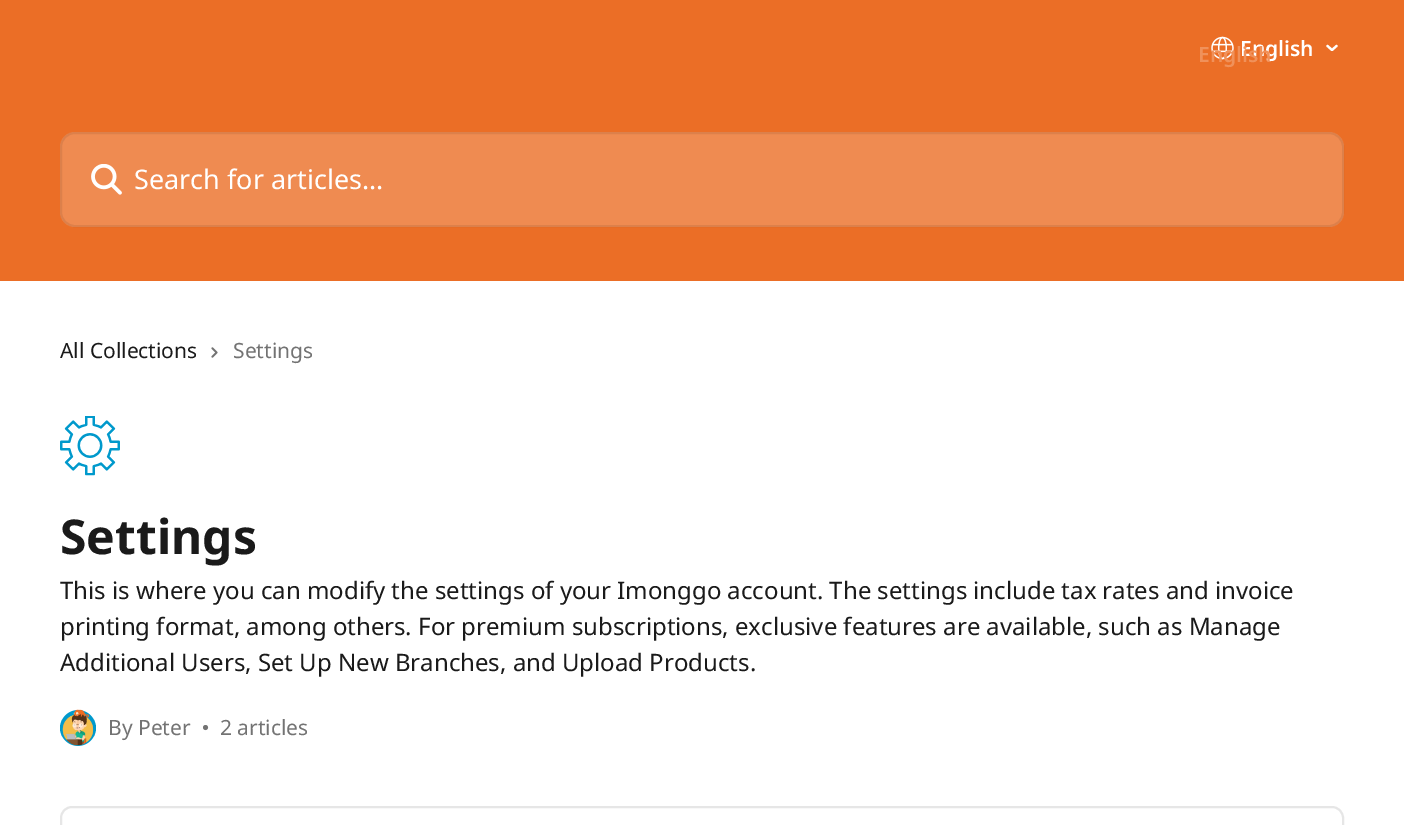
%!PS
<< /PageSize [1404 825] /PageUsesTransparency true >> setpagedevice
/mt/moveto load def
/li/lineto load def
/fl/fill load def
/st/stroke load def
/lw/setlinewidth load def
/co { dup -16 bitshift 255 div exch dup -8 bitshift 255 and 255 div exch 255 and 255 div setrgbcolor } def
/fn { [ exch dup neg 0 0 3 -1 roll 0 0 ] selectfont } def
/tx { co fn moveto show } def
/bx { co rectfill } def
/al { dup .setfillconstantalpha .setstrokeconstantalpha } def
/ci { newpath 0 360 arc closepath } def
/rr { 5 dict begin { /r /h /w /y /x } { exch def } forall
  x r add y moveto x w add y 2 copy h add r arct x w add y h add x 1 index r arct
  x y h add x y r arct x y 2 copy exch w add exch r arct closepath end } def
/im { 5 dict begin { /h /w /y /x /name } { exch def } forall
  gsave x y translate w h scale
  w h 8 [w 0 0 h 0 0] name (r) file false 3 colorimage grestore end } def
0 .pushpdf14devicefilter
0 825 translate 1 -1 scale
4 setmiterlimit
0 0 1404 825 16#FFFFFF bx
0 0 1404 281 16#EB6E26 bx
(media/1.raw) 1211 36 23 24 im
16#FFFFFF co
2.2 lw
1 setlinecap
1 setlinejoin
1327.5 46 mt 1332 50 li 1336.5 46 li st
0.2 al
60 132 1284 95 15 rr fl
0.08 al
16#000000 co
2 lw
0 setlinecap
0 setlinejoin
61 133 1282 93 14 rr st
1 al
(media/2.raw) 91 164 31 31 im
(media/3.raw) 211 347 7 11 im
(media/4.raw) 60 416 60 60 im
16#0099CC co
78 728 18 ci fl
(media/5.raw) 62 709 32 37 im
(media/6.raw) 203 725 6 6 im
16#E6E6E6 co
61 807 1282 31 11 rr st
(English) 1240 56 /NotoSans-SemiBold 21 16#FFFFFF tx
(English) 1198 62 /NotoSans-SemiBold 21 16#F0915A tx
(Search for articles...) 134 189 /NotoSans-Regular 27 16#FFFFFF tx
(All Collections) 60 358 /NotoSans-Regular 21 16#1A1A1A tx
(Settings) 233 358 /NotoSans-Regular 21 16#737373 tx
(Settings) 60 554 /NotoSans-Bold 48 16#1A1A1A tx
(This is where you can modify the settings of your Imonggo account. The settings include tax rates and invoice) 60 599 /NotoSans-Regular 24 16#1A1A1A tx
(printing format, among others. For premium subscriptions, exclusive features are available, such as Manage) 60 635 /NotoSans-Regular 24 16#1A1A1A tx
(Additional Users, Set Up New Branches, and Upload Products.) 60 671 /NotoSans-Regular 24 16#1A1A1A tx
(By Peter) 108 735 /NotoSans-Regular 21 16#737373 tx
(2 articles) 220 735 /NotoSans-Regular 21 16#737373 tx
.poppdf14devicefilter showpage
